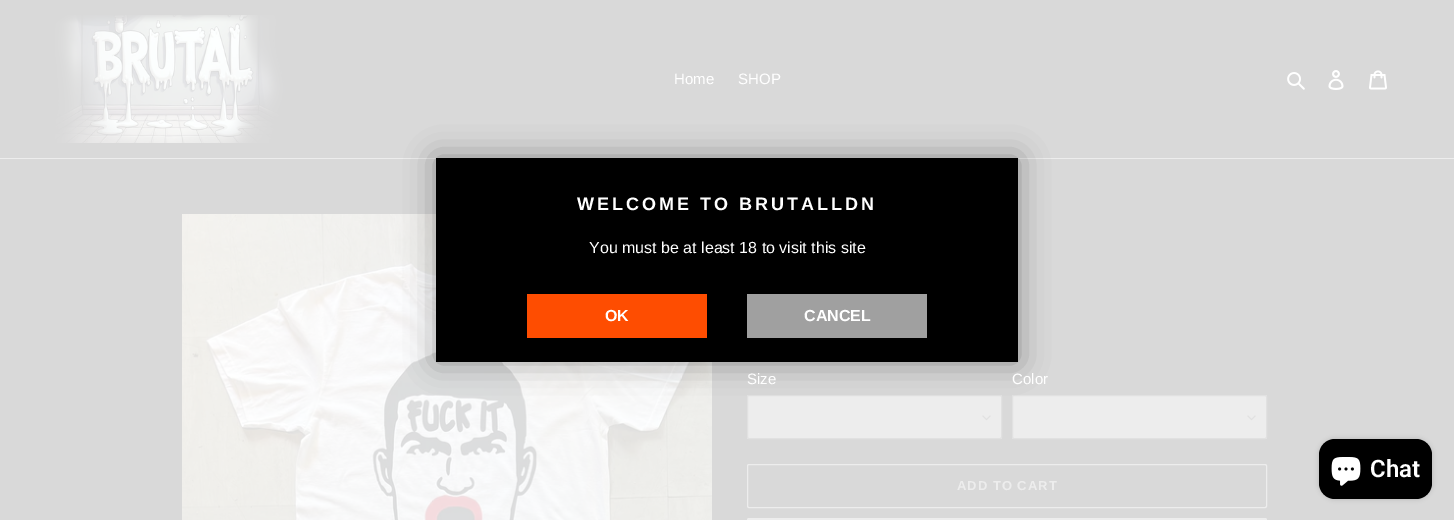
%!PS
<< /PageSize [1454 520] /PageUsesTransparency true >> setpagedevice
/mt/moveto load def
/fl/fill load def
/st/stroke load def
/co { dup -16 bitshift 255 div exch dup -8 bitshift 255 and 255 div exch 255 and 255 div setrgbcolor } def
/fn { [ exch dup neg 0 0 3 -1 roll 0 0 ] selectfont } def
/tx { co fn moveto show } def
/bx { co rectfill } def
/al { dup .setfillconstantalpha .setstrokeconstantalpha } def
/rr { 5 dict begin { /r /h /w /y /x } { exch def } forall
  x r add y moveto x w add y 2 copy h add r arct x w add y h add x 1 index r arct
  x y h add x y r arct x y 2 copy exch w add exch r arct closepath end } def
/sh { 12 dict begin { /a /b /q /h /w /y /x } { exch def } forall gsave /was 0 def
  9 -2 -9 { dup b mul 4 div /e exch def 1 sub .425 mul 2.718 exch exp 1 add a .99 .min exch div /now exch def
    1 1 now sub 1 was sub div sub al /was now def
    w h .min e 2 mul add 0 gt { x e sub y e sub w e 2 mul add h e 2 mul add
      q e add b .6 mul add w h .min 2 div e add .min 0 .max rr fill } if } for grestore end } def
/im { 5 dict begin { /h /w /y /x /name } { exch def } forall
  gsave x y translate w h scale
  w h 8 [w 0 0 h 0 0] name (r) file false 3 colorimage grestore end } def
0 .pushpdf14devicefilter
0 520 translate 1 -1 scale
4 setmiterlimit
0 0 1454 520 16#D9D9D9 bx
0 158 1454 1 16#EDEDED bx
(media/1.raw) 55 15 230 128 im
(media/2.raw) 1287 72 18 18 im
(media/3.raw) 1328 70 16 20 im
(media/4.raw) 1369 70 18 20 im
(media/5.raw) 182 214 530 306 im
747 395 255 44 2 rr fl
(media/6.raw) 982 415 9 6 im
16#E1E1E1 co
747.5 395.5 254 43 1.5 rr st
16#EDEDED co
1012 395 255 44 2 rr fl
(media/6.raw) 1247 415 9 6 im
16#E1E1E1 co
1012.5 395.5 254 43 1.5 rr st
16#000000 co
436 158 582 204 0 15 .35 sh
436 158 582 204 16#000000 bx
527 294 180 44 16#FE4D01 bx
747 294 180 44 16#A0A0A0 bx
16#EDEDED co
747.5 464.5 519 43 1.5 rr st
747 518 520 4 2 rr fl
16#000000 co
1319 439 113 60 16 2.5 .15 sh
1319 439 113 60 16 rr fl
(media/7.raw) 1331 457 30 29 im
(Home) 674 84 /LiberationSans-Regular 15 16#FFFFFF tx
(SHOP) 738 84 /LiberationSans-Regular 15 16#FFFFFF tx
/LiberationSans-Bold 18 fn
577 210 mt 3 0 (WELCOME TO BRUTALLDN) ashow
(You must be at least 18 to visit this site) 589 253 /LiberationSans-Regular 16 16#FFFFFF tx
(OK) 605 321 /LiberationSans-Bold 16 16#FFFFFF tx
(CANCEL) 804 321 /LiberationSans-Bold 16 16#FFFFFF tx
(Size) 747 384 /LiberationSans-Regular 15 16#FFFFFF tx
(Color) 1012 384 /LiberationSans-Regular 15 16#FFFFFF tx
/LiberationSans-Bold 13 fn
16#EDEDED co
957 490 mt 1 0 (ADD TO CART) ashow
(Chat) 1370 477 /Roboto-SemiBold 24 16#FFFFFF tx
.poppdf14devicefilter showpage
